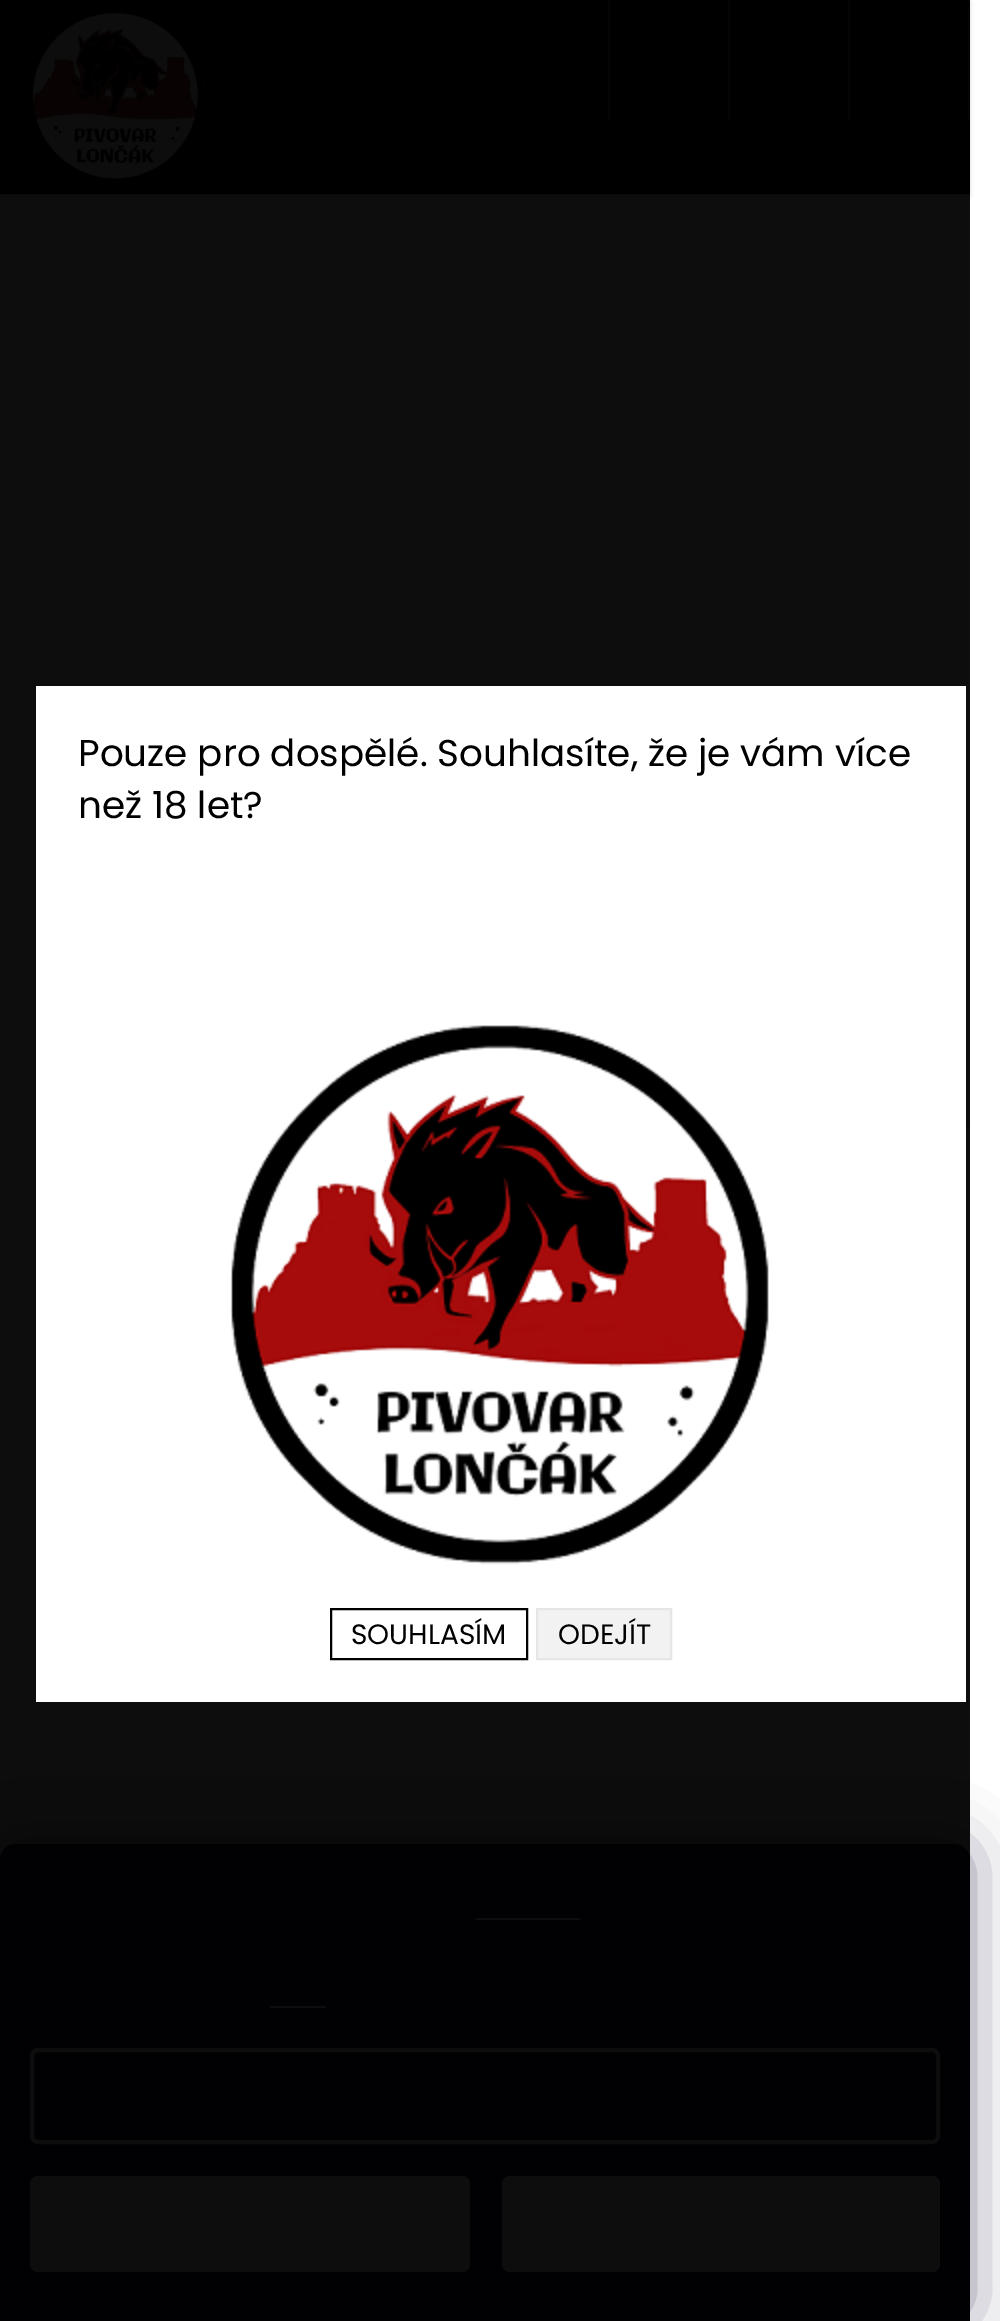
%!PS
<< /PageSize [1000 2321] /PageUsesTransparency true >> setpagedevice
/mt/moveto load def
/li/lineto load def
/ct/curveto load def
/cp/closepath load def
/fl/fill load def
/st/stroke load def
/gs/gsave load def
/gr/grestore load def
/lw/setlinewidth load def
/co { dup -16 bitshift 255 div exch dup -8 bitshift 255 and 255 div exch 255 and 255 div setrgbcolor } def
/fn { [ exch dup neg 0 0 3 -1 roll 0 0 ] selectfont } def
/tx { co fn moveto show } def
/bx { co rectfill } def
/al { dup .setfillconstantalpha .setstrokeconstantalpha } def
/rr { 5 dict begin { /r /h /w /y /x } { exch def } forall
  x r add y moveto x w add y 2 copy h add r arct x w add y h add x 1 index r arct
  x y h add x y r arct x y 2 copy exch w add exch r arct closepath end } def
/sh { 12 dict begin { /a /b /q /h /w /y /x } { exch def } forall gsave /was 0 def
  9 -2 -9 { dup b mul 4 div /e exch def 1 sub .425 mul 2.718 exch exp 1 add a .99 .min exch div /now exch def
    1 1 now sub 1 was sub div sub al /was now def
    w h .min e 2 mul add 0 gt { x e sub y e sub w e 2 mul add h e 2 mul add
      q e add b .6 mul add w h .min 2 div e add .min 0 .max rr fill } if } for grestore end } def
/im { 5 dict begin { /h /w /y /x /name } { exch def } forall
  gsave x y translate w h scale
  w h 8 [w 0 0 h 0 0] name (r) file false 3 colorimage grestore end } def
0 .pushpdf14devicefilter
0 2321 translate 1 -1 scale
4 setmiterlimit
0 0 1000 2321 16#FFFFFF bx
16#000000 co
0 2 970 194 0 2 .16 sh
0 0 970 194 16#000000 bx
(media/1.raw) 25 5 181 181 im
968 0 2 120 16#4D4D4D bx
608 0 2 120 16#4D4D4D bx
728 0 2 120 16#4D4D4D bx
848 0 2 120 16#4D4D4D bx
0 1128 970 732 16#F9F9F9 bx
0 1126 970 2 16#E6E6E6 bx
16#1B1939 co
0 1844 970 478 16 30 .5 sh
16#1A1937 co
16 1844 mt 954 1844 li 963 1844 970 1851 970 1860 ct 970 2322 li 0 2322 li 0 1860 li 0 1851 7 1844 16 1844 ct cp fl
476 1918 104 2 16#F8FAFB bx
270 2006 56 2 16#F8FAFB bx
4 lw
32 2050 906 92 6 rr st
30 2176 440 96 8 rr fl
502 2176 438 96 8 rr fl
0.95 al
0 0 970 2321 16#000000 bx
1 al
36 686 930 1016 16#FFFFFF bx
(media/2.raw) 230 1025 539 540 im
16#000000 co
2 lw
331 1609 196 50 rectstroke
16#F2F2F2 co
537 1609 mt 671 1609 li 671 1659 li 537 1659 li cp gs fl gr
16#E6E6E6 co
st
(Pouze pro dospělé. Souhlasíte, že je vám více) 78 766 /Poppins-Regular 37.3 16#000000 tx
(než 18 let?) 78 818 /Poppins-Regular 37.3 16#000000 tx
(SOUHLASÍM) 351 1644 /Poppins-Regular 28 16#000000 tx
(ODEJÍT) 558 1644 /Poppins-Regular 28 16#000000 tx
.poppdf14devicefilter showpage
